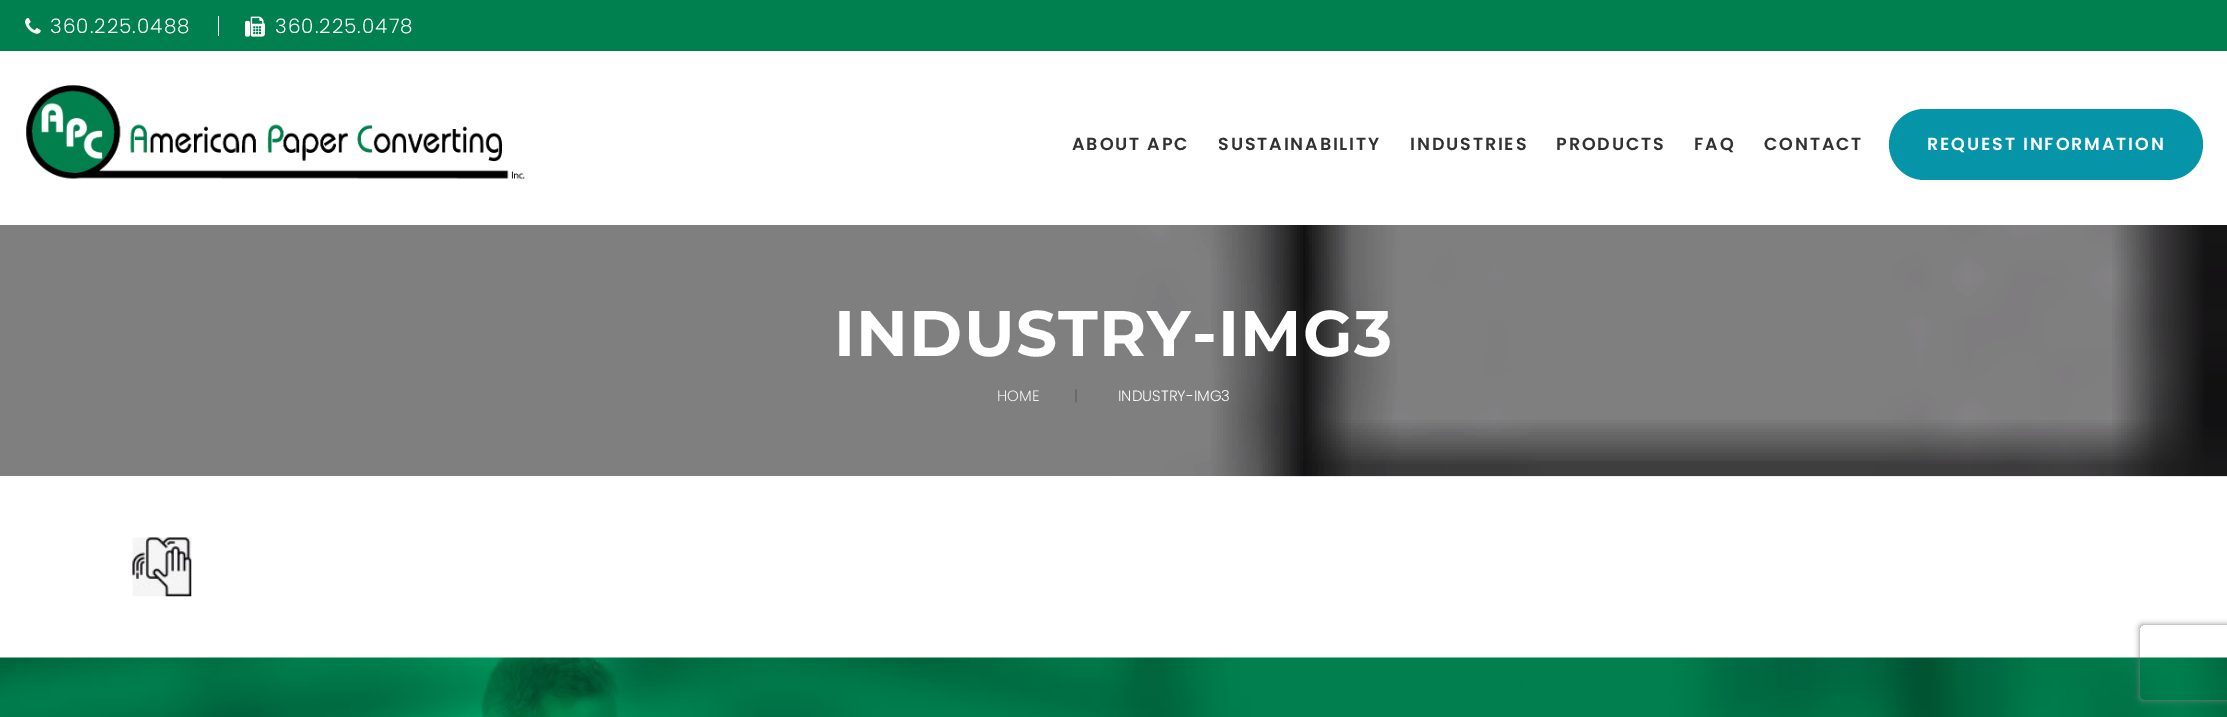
%!PS
<< /PageSize [2227 717] /PageUsesTransparency true >> setpagedevice
/mt/moveto load def
/li/lineto load def
/ct/curveto load def
/cp/closepath load def
/fl/fill load def
/gs/gsave load def
/gr/grestore load def
/co { dup -16 bitshift 255 div exch dup -8 bitshift 255 and 255 div exch 255 and 255 div setrgbcolor } def
/fn { [ exch dup neg 0 0 3 -1 roll 0 0 ] selectfont } def
/tx { co fn moveto show } def
/bx { co rectfill } def
/al { dup .setfillconstantalpha .setstrokeconstantalpha } def
/rr { 5 dict begin { /r /h /w /y /x } { exch def } forall
  x r add y moveto x w add y 2 copy h add r arct x w add y h add x 1 index r arct
  x y h add x y r arct x y 2 copy exch w add exch r arct closepath end } def
/sh { 12 dict begin { /a /b /q /h /w /y /x } { exch def } forall gsave /was 0 def
  9 -2 -9 { dup b mul 4 div /e exch def 1 sub .425 mul 2.718 exch exp 1 add a .99 .min exch div /now exch def
    1 1 now sub 1 was sub div sub al /was now def
    w h .min e 2 mul add 0 gt { x e sub y e sub w e 2 mul add h e 2 mul add
      q e add b .6 mul add w h .min 2 div e add .min 0 .max rr fill } if } for grestore end } def
/im { 5 dict begin { /h /w /y /x /name } { exch def } forall
  gsave x y translate w h scale
  w h 8 [w 0 0 h 0 0] name (r) file false 3 colorimage grestore end } def
0 .pushpdf14devicefilter
0 717 translate 1 -1 scale
4 setmiterlimit
0 0 2227 717 16#FFFFFF bx
0 0 2227 51 16#00804E bx
(media/1.raw) 25 18 16 16 im
218 16 1 20 16#FFFFFF bx
(media/2.raw) 245 16 20 21 im
(media/3.raw) 26 85 499 94 im
16#0694A9 co
1889 109 314 71 35.5 rr fl
0 225 2227 251 16#1E1E1E bx
(media/4.raw) 0 225 2227 252 im
(media/5.raw) 132 537 60 60 im
(media/6.raw) 0 657 2227 60 im
gs
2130 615 mt 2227 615 li 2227 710 li 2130 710 li cp 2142.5 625 mt 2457.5 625 li 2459 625 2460 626 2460 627.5 ct 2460 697.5 li 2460 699 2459 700 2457.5 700 ct 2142.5 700 li 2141 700 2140 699 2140 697.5 ct 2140 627.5 li 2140 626 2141 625 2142.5 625 ct cp eoclip newpath
16#808080 co
2140 625 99 75 2.5 3 1 sh
gr
/Poppins-Light 20 fn
16#FFFFFF co
50 33 mt 1 0 (360.225.0488) ashow
275 33 mt 1 0 (360.225.0478) ashow
/Poppins-SemiBold 17.5 fn
16#323232 co
1072 150 mt 1.9 0 (ABOUT APC) ashow
1218 150 mt 1.9 0 (SUSTAINABILITY) ashow
1410 150 mt 1.9 0 (INDUSTRIES) ashow
1556 150 mt 1.9 0 (PRODUCTS) ashow
1694 150 mt 1.9 0 (FAQ) ashow
1764 150 mt 1.9 0 (CONTACT) ashow
16#FFFFFF co
1927 150 mt 1.9 0 (REQUEST INFORMATION) ashow
/Montserrat-Bold 64.25 fn
834 356 mt 1.25 0 (INDUSTRY-IMG3) ashow
(HOME) 997 401 /Poppins-Light 15 16#F3F3F3 tx
(|) 1074 401 /Poppins-Light 15 16#585858 tx
(INDUSTRY-IMG3) 1118 401 /Poppins-Light 15 16#FFFFFF tx
.poppdf14devicefilter showpage
